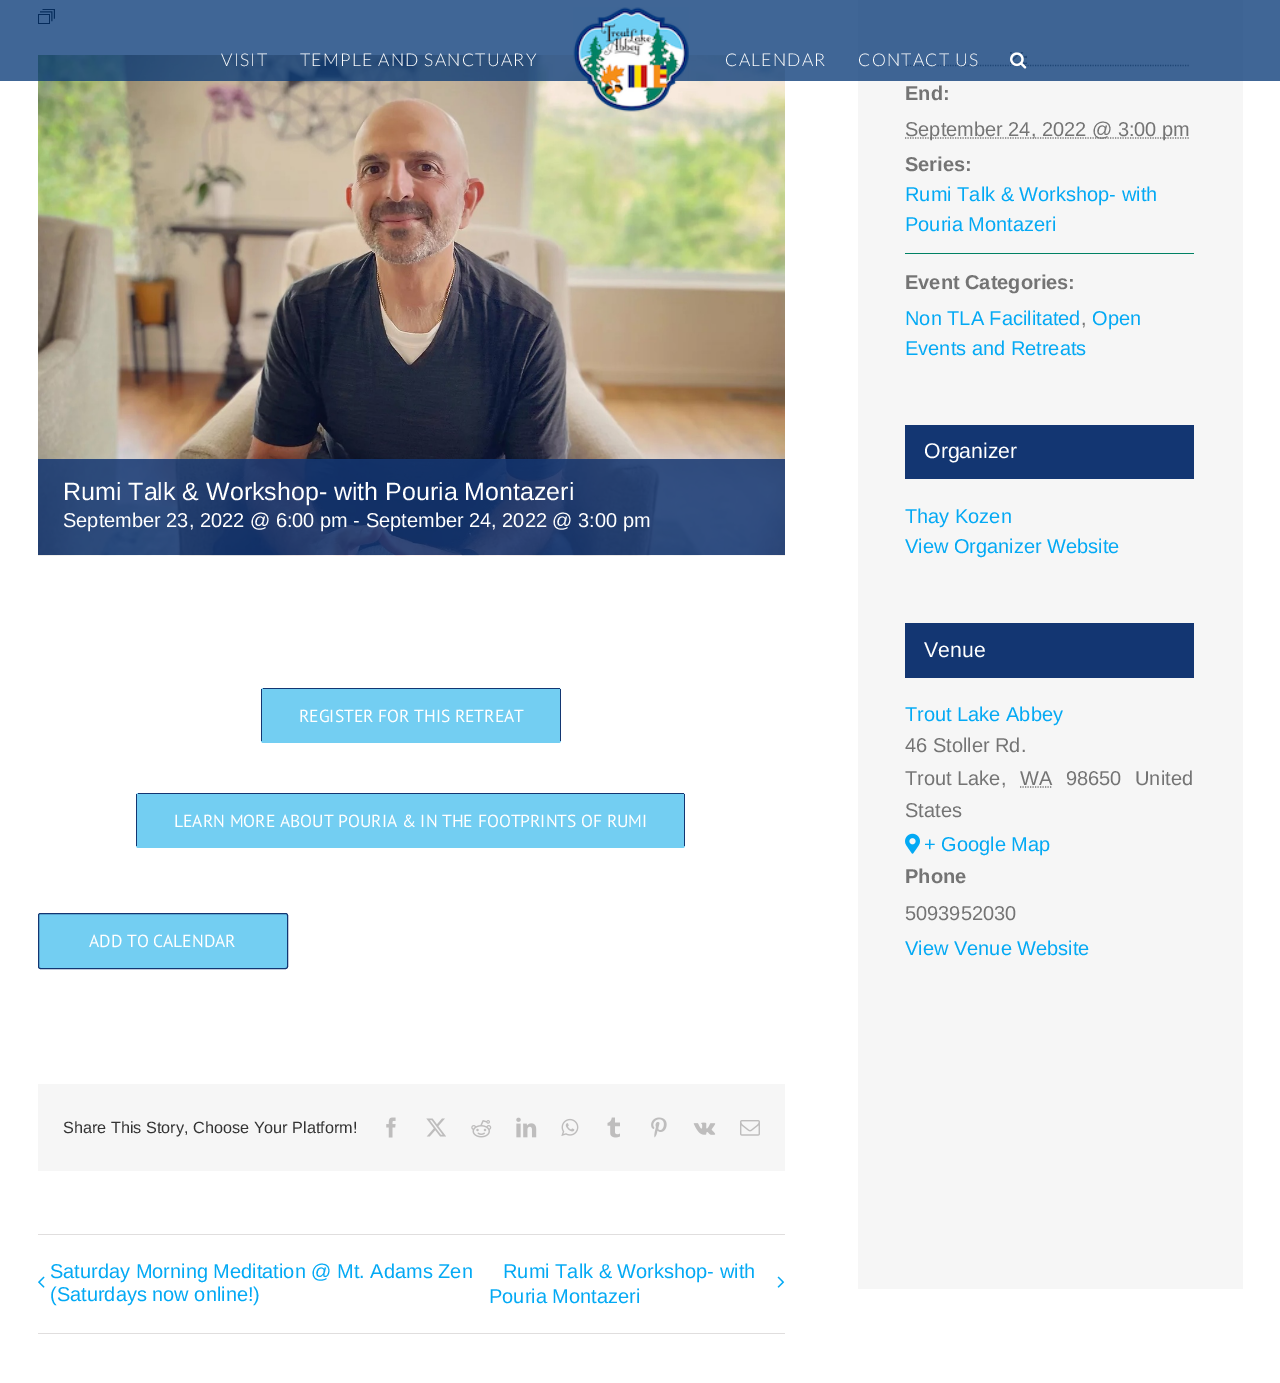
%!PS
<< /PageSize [1280 1383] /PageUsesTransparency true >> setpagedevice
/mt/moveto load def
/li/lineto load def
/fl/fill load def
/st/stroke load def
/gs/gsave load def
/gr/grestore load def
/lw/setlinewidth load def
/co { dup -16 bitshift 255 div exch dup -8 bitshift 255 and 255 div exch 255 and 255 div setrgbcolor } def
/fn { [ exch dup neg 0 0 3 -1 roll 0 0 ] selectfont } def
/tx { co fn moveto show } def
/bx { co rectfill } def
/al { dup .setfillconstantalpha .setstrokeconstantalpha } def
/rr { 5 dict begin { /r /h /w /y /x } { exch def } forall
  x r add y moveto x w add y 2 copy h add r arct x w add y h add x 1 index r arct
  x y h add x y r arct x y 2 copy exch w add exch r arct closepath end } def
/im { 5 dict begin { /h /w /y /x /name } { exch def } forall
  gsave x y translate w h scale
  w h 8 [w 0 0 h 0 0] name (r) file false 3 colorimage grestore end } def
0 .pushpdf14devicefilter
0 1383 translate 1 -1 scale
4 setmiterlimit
0 0 1280 1383 16#FFFFFF bx
(media/3.raw) 38 9 17 15 im
(media/4.raw) 38 55 747 501 im
858 0 385 1289 16#F6F6F6 bx
16#747474 co
1.2 lw
[1.25 1.25] 0 setdash
905 65.5 mt 1190 65.5 li st
0.77 al
0 0 1280 81 16#063876 bx
1 al
(media/1.raw) 573 7 116 105 im
(media/2.raw) 1010 52 17 17 im
0.85 al
38 459 747 96 16#133672 bx
1 al
16#73CEF2 co
261 688 300 55 2.5 rr fl
263 688 297 1 16#133672 bx
560 689 1 52 16#133672 bx
261 689 1 52 16#133672 bx
16#73CEF2 co
136 793 549 55 2.5 rr fl
138 793 546 1 16#133672 bx
684 794 1 52 16#133672 bx
136 794 1 52 16#133672 bx
16#73CEF2 co
38.5 913.5 249 55 2 rr gs fl gr
16#133672 co
1 lw
[] 0 setdash
st
38 1084 747 87 16#F6F6F6 bx
(media/5.raw) 386 1117 10 21 im
(media/6.raw) 426 1118 20 19 im
(media/7.raw) 471 1120 21 18 im
(media/8.raw) 516 1117 21 21 im
(media/9.raw) 561 1118 18 18 im
(media/10.raw) 607 1117 13 21 im
(media/11.raw) 651 1117 16 21 im
(media/12.raw) 693 1122 23 13 im
(media/13.raw) 740 1120 20 16 im
38 1234 747 1 16#E0DEDE bx
38 1333 747 1 16#E0DEDE bx
(media/14.raw) 38 1276 7 12 im
(media/15.raw) 777 1276 8 12 im
16#747474 co
1.2 lw
[1.25 1.25] 0 setdash
905 138 mt 1190 138 li st
905 253 289 1 16#008164 bx
905 425 289 54 16#133672 bx
905 623 289 55 16#133672 bx
16#747474 co
1020 787 mt 1052 787 li st
(media/16.raw) 905 833 15 21 im
/Lato-Light 17.5 fn
16#FFFFFF co
221 66 mt 1.25 0 (VISIT) ashow
300 66 mt 1.25 0 (TEMPLE AND SANCTUARY) ashow
725 66 mt 1.25 0 (CALENDAR) ashow
858 66 mt 1.25 0 (CONTACT US) ashow
(Rumi Talk & Workshop- with Pouria Montazeri) 63 500 /LiberationSans-Regular 25 16#FFFFFF tx
(September 23, 2022 @ 6:00 pm - September 24, 2022 @ 3:00 pm) 63 527 /LiberationSans-Regular 20 16#FFFFFF tx
(REGISTER FOR THIS RETREAT) 299 722 /PTSans-Regular 17.5 16#FFFFFF tx
(LEARN MORE ABOUT POURIA & IN THE FOOTPRINTS OF RUMI) 174 827 /PTSans-Regular 17.5 16#FFFFFF tx
(ADD TO CALENDAR) 89 947 /PTSans-Regular 17.5 16#FFFFFF tx
(Share This Story, Choose Your Platform!) 63 1133 /LiberationSans-Regular 16.25 16#333333 tx
(Saturday Morning Meditation @ Mt. Adams Zen) 50 1278 /LiberationSans-Regular 20 16#03A9F4 tx
(\(Saturdays now online!\)) 50 1301 /LiberationSans-Regular 20 16#03A9F4 tx
(Rumi Talk & Workshop- with) 503 1278 /LiberationSans-Regular 20 16#03A9F4 tx
(Pouria Montazeri) 489 1303 /LiberationSans-Regular 20 16#03A9F4 tx
(End:) 905 100 /LiberationSans-Bold 20 16#747474 tx
(September 24, 2022 @ 3:00 pm) 905 136 /LiberationSans-Regular 20 16#747474 tx
(Series:) 905 171 /LiberationSans-Bold 20 16#747474 tx
(Rumi Talk & Workshop- with) 905 201 /LiberationSans-Regular 20 16#03A9F4 tx
(Pouria Montazeri) 905 231 /LiberationSans-Regular 20 16#03A9F4 tx
(Event Categories:) 905 289 /LiberationSans-Bold 20 16#747474 tx
(Non TLA Facilitated) 905 325 /LiberationSans-Regular 20 16#03A9F4 tx
(,) 1081 325 /LiberationSans-Regular 20 16#747474 tx
(Open) 1092 325 /LiberationSans-Regular 20 16#03A9F4 tx
(Events and Retreats) 905 355 /LiberationSans-Regular 20 16#03A9F4 tx
(Organizer) 924 458 /LiberationSans-Regular 21.25 16#FFFFFF tx
(Thay Kozen) 905 523 /LiberationSans-Regular 20 16#03A9F4 tx
(View Organizer Website) 905 553 /LiberationSans-Regular 20 16#03A9F4 tx
(Venue) 924 657 /LiberationSans-Regular 21.25 16#FFFFFF tx
(Trout Lake Abbey) 905 721 /LiberationSans-Regular 20 16#03A9F4 tx
(46 Stoller Rd.) 905 752 /LiberationSans-Regular 20 16#747474 tx
(Trout Lake,) 905 785 /LiberationSans-Regular 20 16#747474 tx
(WA) 1020 785 /LiberationSans-Regular 20 16#747474 tx
(98650) 1066 785 /LiberationSans-Regular 20 16#747474 tx
(United) 1135 785 /LiberationSans-Regular 20 16#747474 tx
(States) 905 817 /LiberationSans-Regular 20 16#747474 tx
(+ Google Map) 924 851 /LiberationSans-Regular 20 16#03A9F4 tx
(Phone) 905 883 /LiberationSans-Bold 20 16#747474 tx
(5093952030) 905 920 /LiberationSans-Regular 20 16#747474 tx
(View Venue Website) 905 955 /LiberationSans-Regular 20 16#03A9F4 tx
.poppdf14devicefilter showpage
